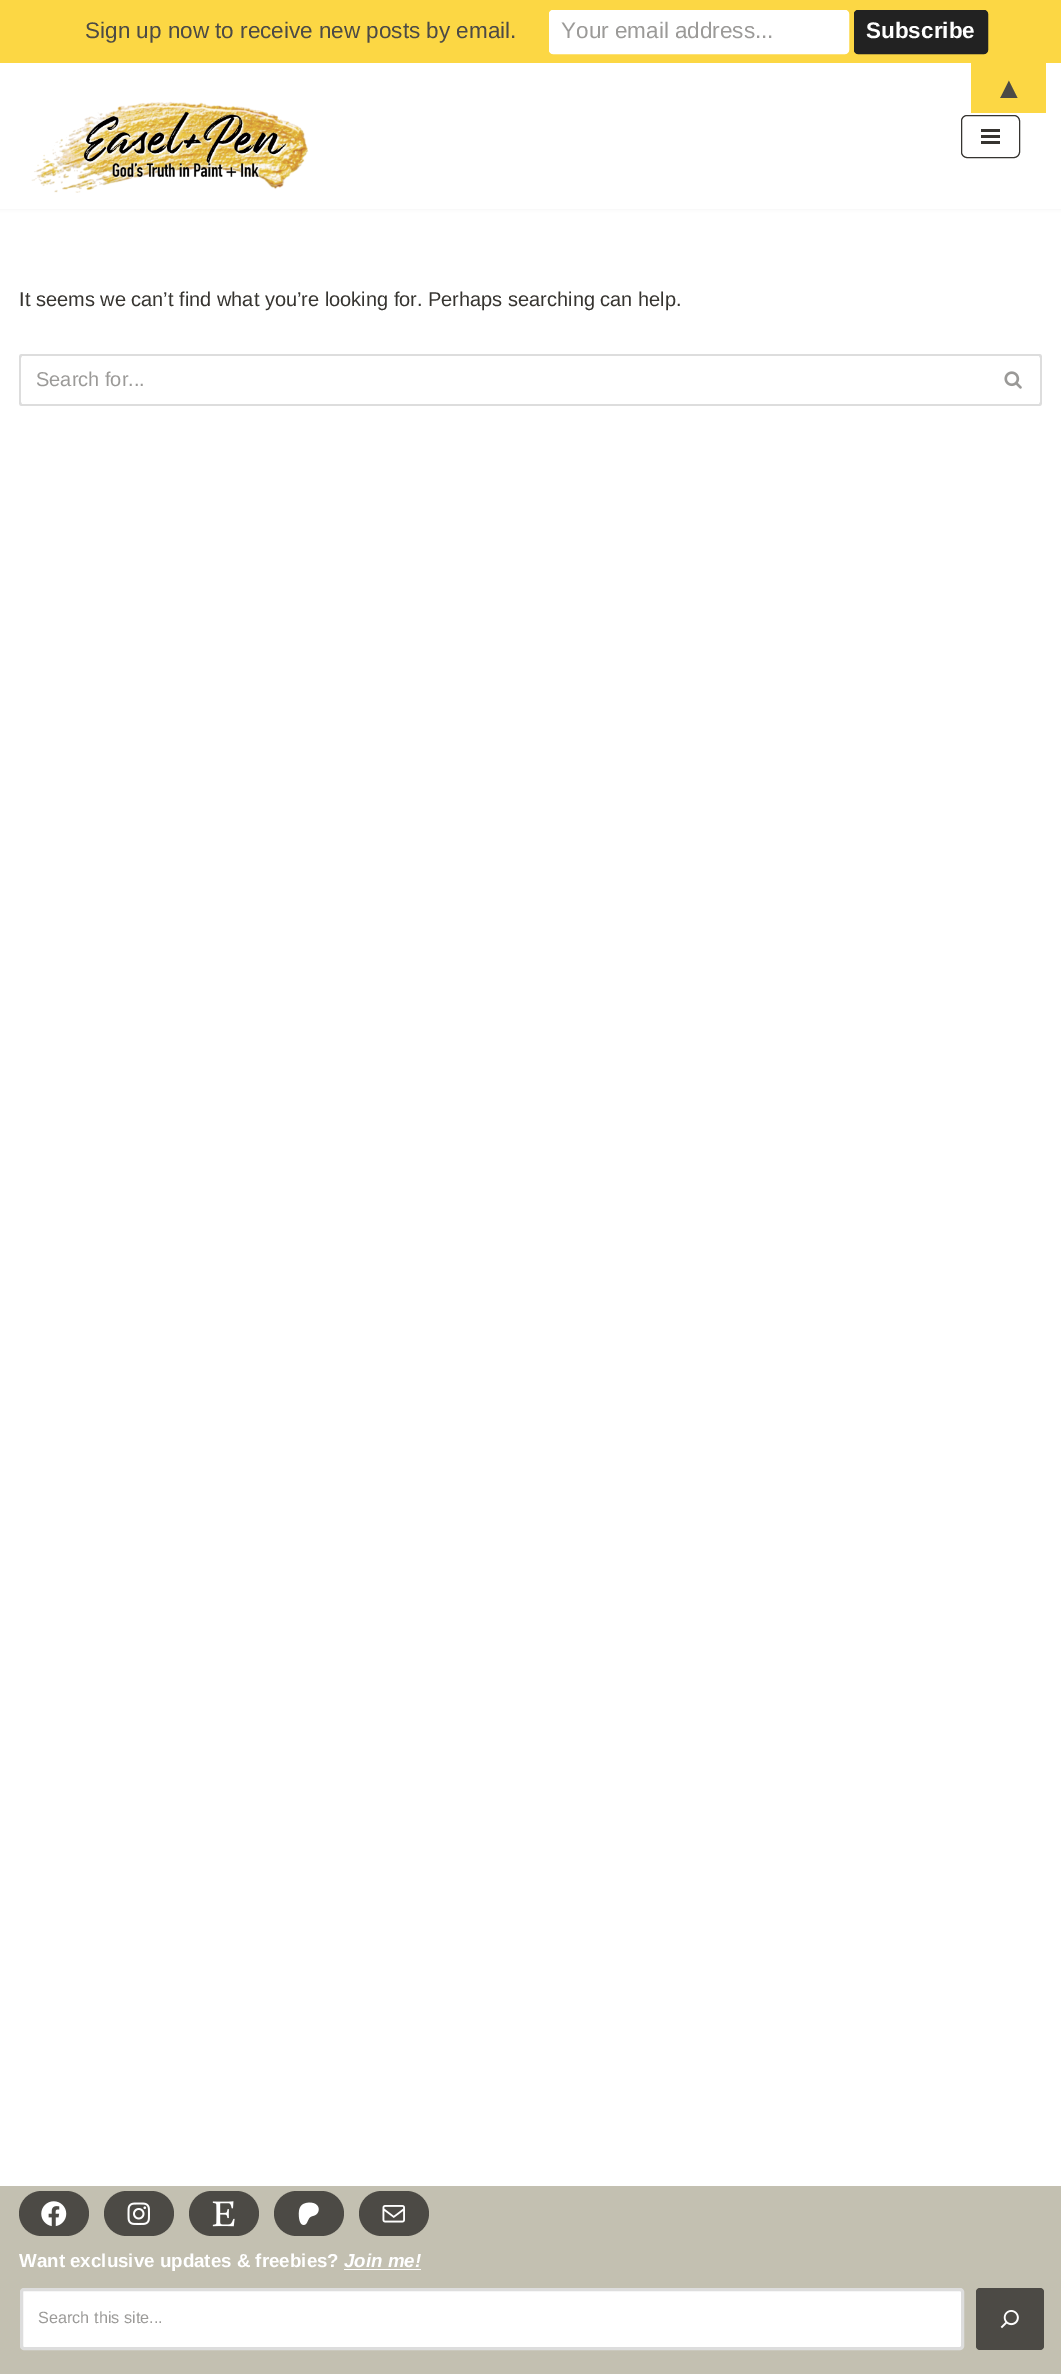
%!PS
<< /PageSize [1061 2374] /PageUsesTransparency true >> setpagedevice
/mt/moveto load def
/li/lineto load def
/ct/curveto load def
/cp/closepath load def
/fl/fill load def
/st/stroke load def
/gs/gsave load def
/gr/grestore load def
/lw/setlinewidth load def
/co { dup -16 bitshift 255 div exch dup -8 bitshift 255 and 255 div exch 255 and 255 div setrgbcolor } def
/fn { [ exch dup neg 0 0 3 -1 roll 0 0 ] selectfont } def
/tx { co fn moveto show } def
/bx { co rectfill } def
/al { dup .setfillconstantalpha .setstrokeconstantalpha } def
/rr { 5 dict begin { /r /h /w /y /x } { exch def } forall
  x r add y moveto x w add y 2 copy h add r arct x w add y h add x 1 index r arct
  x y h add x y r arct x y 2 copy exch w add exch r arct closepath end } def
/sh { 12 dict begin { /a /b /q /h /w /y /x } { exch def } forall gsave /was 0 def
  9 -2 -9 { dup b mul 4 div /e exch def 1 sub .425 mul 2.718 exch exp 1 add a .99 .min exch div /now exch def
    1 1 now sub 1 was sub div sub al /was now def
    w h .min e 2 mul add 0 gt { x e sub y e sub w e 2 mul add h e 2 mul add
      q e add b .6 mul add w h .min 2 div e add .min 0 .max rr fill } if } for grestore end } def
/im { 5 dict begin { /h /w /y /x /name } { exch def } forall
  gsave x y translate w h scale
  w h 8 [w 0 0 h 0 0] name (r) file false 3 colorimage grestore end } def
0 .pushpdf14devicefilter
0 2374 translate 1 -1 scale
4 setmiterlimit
0 0 1061 2374 16#FFFFFF bx
16#000000 co
0 61 1061 147 0 2 .1 sh
0 0 1061 63 16#FCD744 bx
16#FFFFFF co
549.5 10.5 299 43 3.5 rr gs fl gr
st
16#222222 co
854.5 10.5 133 43 3.5 rr gs fl gr
st
0 63 1061 146 16#FFFFFF bx
971 63 75 50 16#FCD744 bx
(media/1.raw) 31 101 278 92 im
16#363430 co
961.5 115.5 58 42 5.5 rr st
981 129 19 3 16#363430 bx
981 135 19 3 16#363430 bx
981 141 19 3 16#363430 bx
16#DDDDDD co
22 354 mt 986 354 li 986 406 li 22 406 li 20 406 19 405 19 402 ct 19 358 li 19 355 20 354 22 354 ct cp 22 356 mt 986 356 li 986 404 li 22 404 li 22 404 21 403 21 402 ct 21 358 li 21 357 22 356 22 356 ct cp eofill
986 354 mt 1039 354 li 1041 354 1042 355 1042 358 ct 1042 402 li 1042 405 1041 406 1039 406 ct 986 406 li cp 986 356 mt 1039 356 li 1039 356 1040 357 1040 358 ct 1040 402 li 1040 403 1039 404 1039 404 ct 986 404 li cp eofill
(media/2.raw) 1004 371 18 18 im
0 2186 1061 188 16#C3C0B1 bx
16#4C4A45 co
19 2191 70 45 22.5 rr fl
(media/3.raw) 41 2201 26 26 im
104 2191 70 45 22.5 rr fl
(media/4.raw) 127 2202 23 23 im
189 2191 70 45 22.5 rr fl
(media/5.raw) 212 2201 23 26 im
274 2191 70 45 22.5 rr fl
(media/6.raw) 298 2202 21 23 im
359 2191 70 45 22.5 rr fl
(media/7.raw) 382 2205 23 18 im
344 2269 77 1 16#FFFFFF bx
21.5 2289.5 941 59 2.5 rr gs fl gr
16#DDDDDD co
3 lw
st
16#4C4A45 co
976 2288 68 62 4 rr fl
(media/8.raw) 1000 2310 19 19 im
(Sign up now to receive new posts by email.) 85 38 /LiberationSans-Regular 22.5 16#4C4A45 tx
(Your email address...) 561 38 /LiberationSans-Regular 22.5 16#9B9A98 tx
(Subscribe) 866 38 /LiberationSans-Bold 22.5 16#FFFFFF tx
(▲) 994 98 /LiberationSans-Regular 30 16#4C4A45 tx
(It seems we can’t find what you’re looking for. Perhaps searching can help.) 19 306 /LiberationSans-Regular 20 16#363430 tx
(Search for...) 36 386 /LiberationSans-Regular 20 16#9B9A98 tx
(Want exclusive updates & freebies?) 19 2267 /LiberationSans-Bold 18.75 16#FFFFFF tx
(Join me!) 344 2267 /LiberationSans-BoldItalic 18.75 16#FFFFFF tx
(Search this site...) 38 2323 /LiberationSans-Regular 16.25 16#9B9A98 tx
.poppdf14devicefilter showpage
